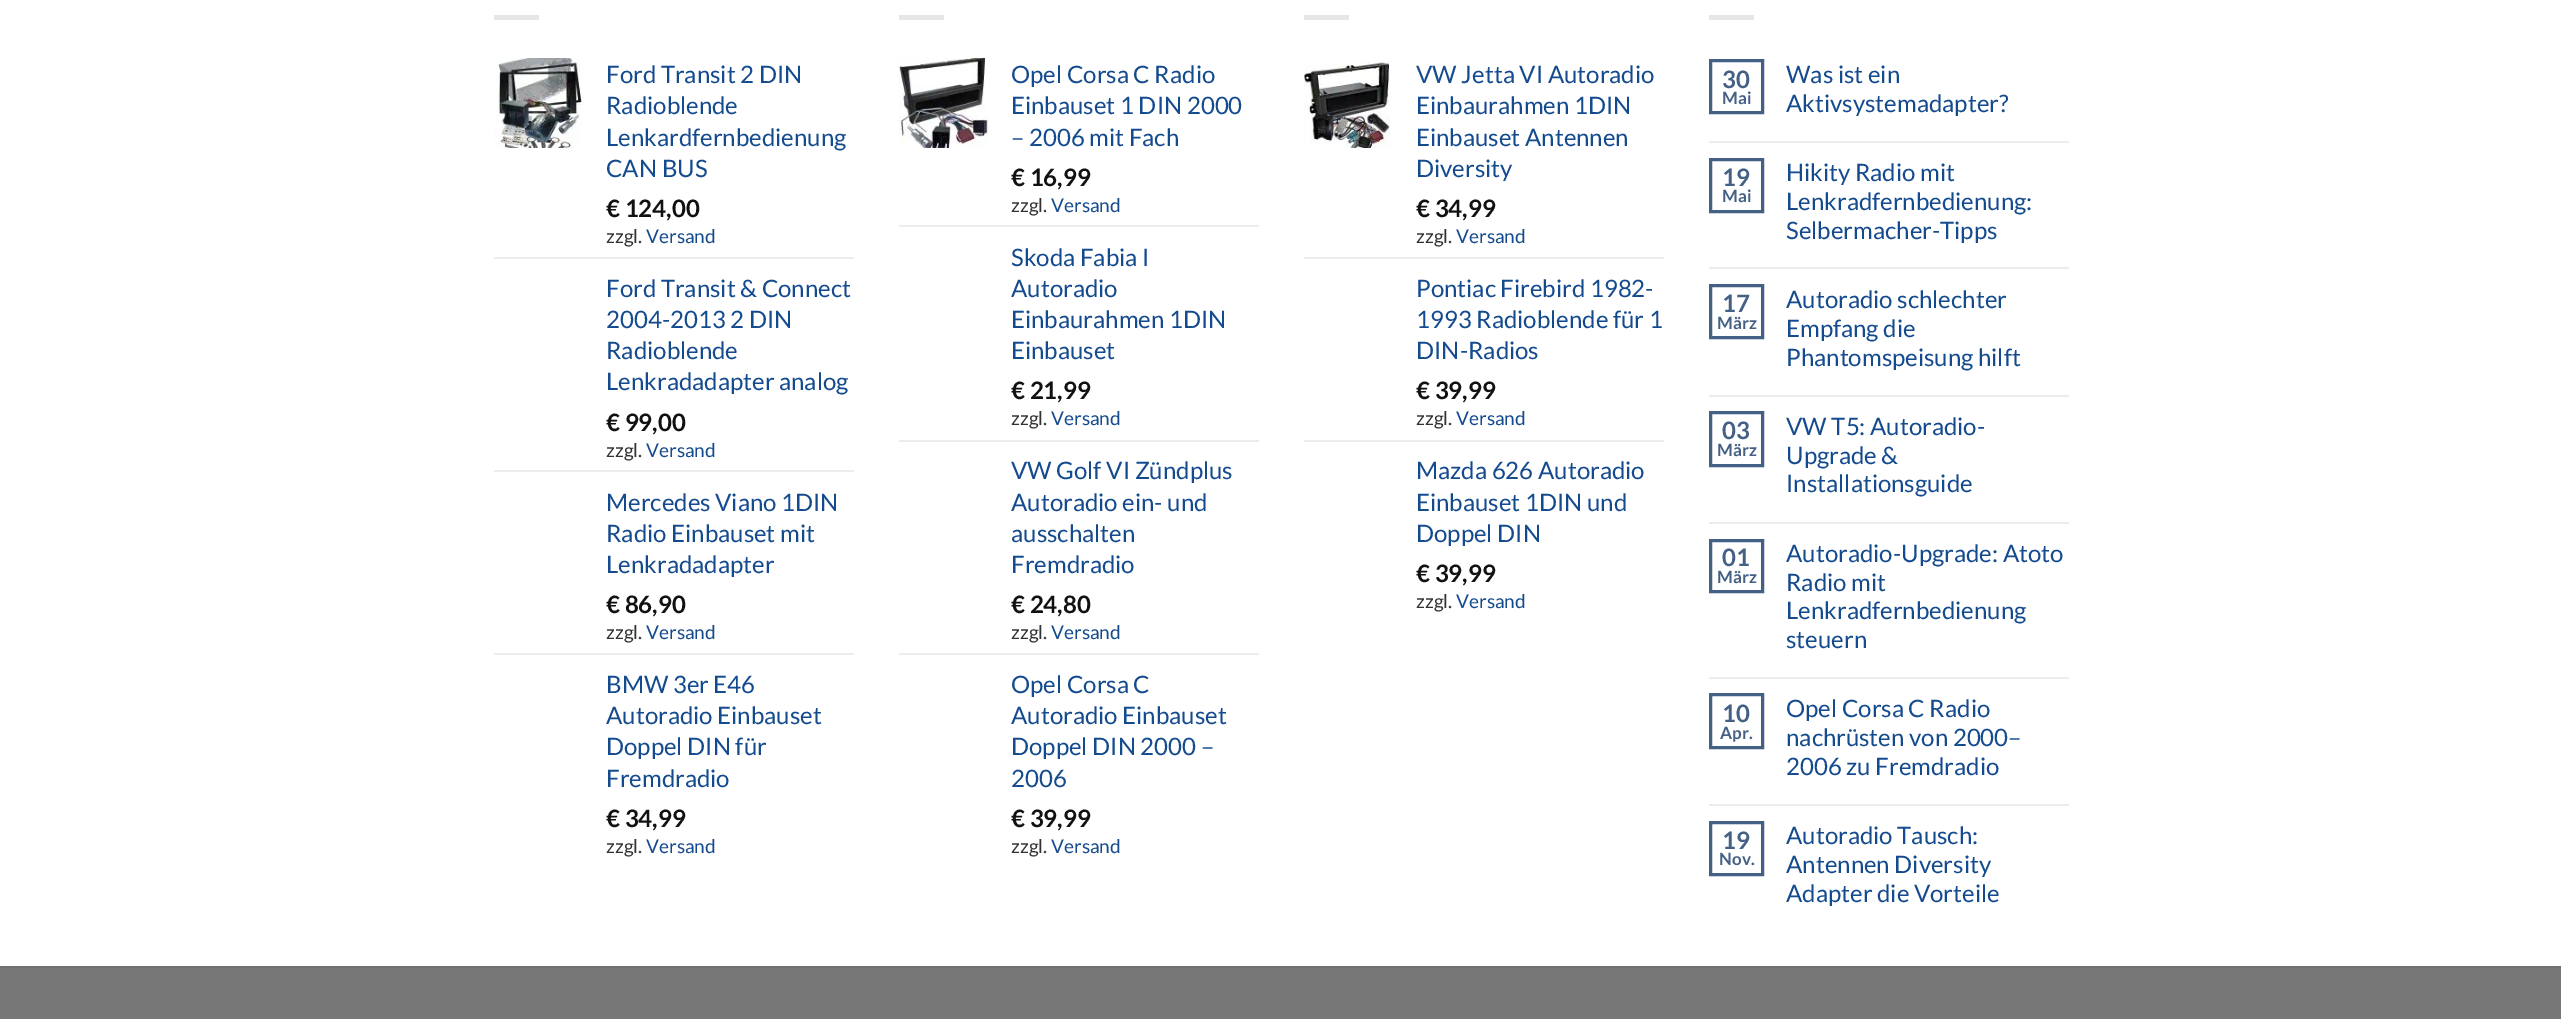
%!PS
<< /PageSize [2561 1019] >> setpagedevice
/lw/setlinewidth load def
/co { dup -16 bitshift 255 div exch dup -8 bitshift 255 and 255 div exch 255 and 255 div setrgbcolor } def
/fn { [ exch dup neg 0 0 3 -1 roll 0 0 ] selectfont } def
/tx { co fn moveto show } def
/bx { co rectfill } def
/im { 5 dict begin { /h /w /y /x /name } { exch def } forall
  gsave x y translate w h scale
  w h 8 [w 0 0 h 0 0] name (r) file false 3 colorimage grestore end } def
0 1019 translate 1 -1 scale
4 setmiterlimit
0 0 2561 1019 16#FFFFFF bx
494 15 45 5 16#E6E6E6 bx
(media/1.raw) 494 58 90 90 im
494 257 360 2 16#ECECEC bx
494 470 360 2 16#ECECEC bx
494 653 360 2 16#ECECEC bx
899 15 45 5 16#E6E6E6 bx
(media/2.raw) 899 58 90 90 im
899 225 360 2 16#ECECEC bx
899 440 360 2 16#ECECEC bx
899 653 360 2 16#ECECEC bx
1304 15 45 5 16#E6E6E6 bx
(media/3.raw) 1304 61 86 87 im
1304 257 360 2 16#ECECEC bx
1304 440 360 2 16#ECECEC bx
1709 15 45 5 16#E6E6E6 bx
16#446084 co
3 lw
1710.5 60.5 52 52 rectstroke
1709 141 360 2 16#ECECEC bx
16#446084 co
1710.5 159.5 52 52 rectstroke
1709 267 360 2 16#ECECEC bx
16#446084 co
1710.5 285.5 52 52 rectstroke
1709 395 360 2 16#ECECEC bx
16#446084 co
1710.5 412.5 52 53 rectstroke
1709 522 360 2 16#ECECEC bx
16#446084 co
1710.5 540.5 52 51 rectstroke
1709 677 360 2 16#ECECEC bx
16#446084 co
1710.5 694.5 52 53 rectstroke
1709 804 360 2 16#ECECEC bx
16#446084 co
1710.5 822.5 52 52 rectstroke
0 968 2561 51 16#777777 bx
0 966 2561 2 16#717171 bx
(Ford Transit 2 DIN) 606 83 /Lato-Regular 24 16#144B8E tx
(Radioblende) 606 114 /Lato-Regular 24 16#144B8E tx
(Lenkardfernbedienung) 606 146 /Lato-Regular 24 16#144B8E tx
(CAN BUS) 606 177 /Lato-Regular 24 16#144B8E tx
(€ 124,00) 606 217 /Lato-Bold 24 16#111111 tx
(zzgl.) 606 243 /Lato-Regular 19 16#333232 tx
(Versand) 646 243 /Lato-Regular 19 16#144B8E tx
(Ford Transit & Connect) 606 297 /Lato-Regular 24 16#144B8E tx
(2004-2013 2 DIN) 606 328 /Lato-Regular 24 16#144B8E tx
(Radioblende) 606 359 /Lato-Regular 24 16#144B8E tx
(Lenkradadapter analog) 606 390 /Lato-Regular 24 16#144B8E tx
(€ 99,00) 606 431 /Lato-Bold 24 16#111111 tx
(zzgl.) 606 457 /Lato-Regular 19 16#333232 tx
(Versand) 646 457 /Lato-Regular 19 16#144B8E tx
(Mercedes Viano 1DIN) 606 511 /Lato-Regular 24 16#144B8E tx
(Radio Einbauset mit) 606 542 /Lato-Regular 24 16#144B8E tx
(Lenkradadapter) 606 573 /Lato-Regular 24 16#144B8E tx
(€ 86,90) 606 613 /Lato-Bold 24 16#111111 tx
(zzgl.) 606 639 /Lato-Regular 19 16#333232 tx
(Versand) 646 639 /Lato-Regular 19 16#144B8E tx
(BMW 3er E46) 606 693 /Lato-Regular 24 16#144B8E tx
(Autoradio Einbauset) 606 724 /Lato-Regular 24 16#144B8E tx
(Doppel DIN für) 606 755 /Lato-Regular 24 16#144B8E tx
(Fremdradio) 606 787 /Lato-Regular 24 16#144B8E tx
(€ 34,99) 606 827 /Lato-Bold 24 16#111111 tx
(zzgl.) 606 853 /Lato-Regular 19 16#333232 tx
(Versand) 646 853 /Lato-Regular 19 16#144B8E tx
(Opel Corsa C Radio) 1011 83 /Lato-Regular 24 16#144B8E tx
(Einbauset 1 DIN 2000) 1011 114 /Lato-Regular 24 16#144B8E tx
(– 2006 mit Fach) 1011 146 /Lato-Regular 24 16#144B8E tx
(€ 16,99) 1011 186 /Lato-Bold 24 16#111111 tx
(zzgl.) 1011 212 /Lato-Regular 19 16#333232 tx
(Versand) 1051 212 /Lato-Regular 19 16#144B8E tx
(Skoda Fabia I) 1011 266 /Lato-Regular 24 16#144B8E tx
(Autoradio) 1011 297 /Lato-Regular 24 16#144B8E tx
(Einbaurahmen 1DIN) 1011 328 /Lato-Regular 24 16#144B8E tx
(Einbauset) 1011 359 /Lato-Regular 24 16#144B8E tx
(€ 21,99) 1011 399 /Lato-Bold 24 16#111111 tx
(zzgl.) 1011 425 /Lato-Regular 19 16#333232 tx
(Versand) 1051 425 /Lato-Regular 19 16#144B8E tx
(VW Golf VI Zündplus) 1011 479 /Lato-Regular 24 16#144B8E tx
(Autoradio ein- und) 1011 511 /Lato-Regular 24 16#144B8E tx
(ausschalten) 1011 542 /Lato-Regular 24 16#144B8E tx
(Fremdradio) 1011 573 /Lato-Regular 24 16#144B8E tx
(€ 24,80) 1011 613 /Lato-Bold 24 16#111111 tx
(zzgl.) 1011 639 /Lato-Regular 19 16#333232 tx
(Versand) 1051 639 /Lato-Regular 19 16#144B8E tx
(Opel Corsa C) 1011 693 /Lato-Regular 24 16#144B8E tx
(Autoradio Einbauset) 1011 724 /Lato-Regular 24 16#144B8E tx
(Doppel DIN 2000 –) 1011 755 /Lato-Regular 24 16#144B8E tx
(2006) 1011 787 /Lato-Regular 24 16#144B8E tx
(€ 39,99) 1011 827 /Lato-Bold 24 16#111111 tx
(zzgl.) 1011 853 /Lato-Regular 19 16#333232 tx
(Versand) 1051 853 /Lato-Regular 19 16#144B8E tx
(VW Jetta VI Autoradio) 1416 83 /Lato-Regular 24 16#144B8E tx
(Einbaurahmen 1DIN) 1416 114 /Lato-Regular 24 16#144B8E tx
(Einbauset Antennen) 1416 146 /Lato-Regular 24 16#144B8E tx
(Diversity) 1416 177 /Lato-Regular 24 16#144B8E tx
(€ 34,99) 1416 217 /Lato-Bold 24 16#111111 tx
(zzgl.) 1416 243 /Lato-Regular 19 16#333232 tx
(Versand) 1456 243 /Lato-Regular 19 16#144B8E tx
(Pontiac Firebird 1982-) 1416 297 /Lato-Regular 24 16#144B8E tx
(1993 Radioblende für 1) 1416 328 /Lato-Regular 24 16#144B8E tx
(DIN-Radios) 1416 359 /Lato-Regular 24 16#144B8E tx
(€ 39,99) 1416 399 /Lato-Bold 24 16#111111 tx
(zzgl.) 1416 425 /Lato-Regular 19 16#333232 tx
(Versand) 1456 425 /Lato-Regular 19 16#144B8E tx
(Mazda 626 Autoradio) 1416 479 /Lato-Regular 24 16#144B8E tx
(Einbauset 1DIN und) 1416 511 /Lato-Regular 24 16#144B8E tx
(Doppel DIN) 1416 542 /Lato-Regular 24 16#144B8E tx
(€ 39,99) 1416 582 /Lato-Bold 24 16#111111 tx
(zzgl.) 1416 608 /Lato-Regular 19 16#333232 tx
(Versand) 1456 608 /Lato-Regular 19 16#144B8E tx
(30) 1722 88 /Lato-Bold 24 16#446084 tx
(Mai) 1722 104 /Lato-Bold 17 16#446084 tx
(Was ist ein) 1786 83 /Lato-Regular 24 16#144B8E tx
(Aktivsystemadapter?) 1786 112 /Lato-Regular 24 16#144B8E tx
(19) 1722 186 /Lato-Bold 24 16#446084 tx
(Mai) 1722 202 /Lato-Bold 17 16#446084 tx
(Hikity Radio mit) 1786 181 /Lato-Regular 24 16#144B8E tx
(Lenkradfernbedienung:) 1786 210 /Lato-Regular 24 16#144B8E tx
(Selbermacher-Tipps) 1786 239 /Lato-Regular 24 16#144B8E tx
(17) 1722 312 /Lato-Bold 24 16#446084 tx
(März) 1717 329 /Lato-Bold 17 16#446084 tx
(Autoradio schlechter) 1786 308 /Lato-Regular 24 16#144B8E tx
(Empfang die) 1786 337 /Lato-Regular 24 16#144B8E tx
(Phantomspeisung hilft) 1786 366 /Lato-Regular 24 16#144B8E tx
(03) 1722 439 /Lato-Bold 24 16#446084 tx
(März) 1717 456 /Lato-Bold 17 16#446084 tx
(VW T5: Autoradio-) 1786 435 /Lato-Regular 24 16#144B8E tx
(Upgrade &) 1786 464 /Lato-Regular 24 16#144B8E tx
(Installationsguide) 1786 492 /Lato-Regular 24 16#144B8E tx
(01) 1722 566 /Lato-Bold 24 16#446084 tx
(März) 1717 583 /Lato-Bold 17 16#446084 tx
(Autoradio-Upgrade: Atoto) 1786 562 /Lato-Regular 24 16#144B8E tx
(Radio mit) 1786 591 /Lato-Regular 24 16#144B8E tx
(Lenkradfernbedienung) 1786 619 /Lato-Regular 24 16#144B8E tx
(steuern) 1786 648 /Lato-Regular 24 16#144B8E tx
(10) 1722 722 /Lato-Bold 24 16#446084 tx
(Apr.) 1720 739 /Lato-Bold 17 16#446084 tx
(Opel Corsa C Radio) 1786 717 /Lato-Regular 24 16#144B8E tx
(nachrüsten von 2000–) 1786 746 /Lato-Regular 24 16#144B8E tx
(2006 zu Fremdradio) 1786 775 /Lato-Regular 24 16#144B8E tx
(19) 1722 849 /Lato-Bold 24 16#446084 tx
(Nov.) 1719 865 /Lato-Bold 17 16#446084 tx
(Autoradio Tausch:) 1786 844 /Lato-Regular 24 16#144B8E tx
(Antennen Diversity) 1786 873 /Lato-Regular 24 16#144B8E tx
(Adapter die Vorteile) 1786 902 /Lato-Regular 24 16#144B8E tx
showpage
